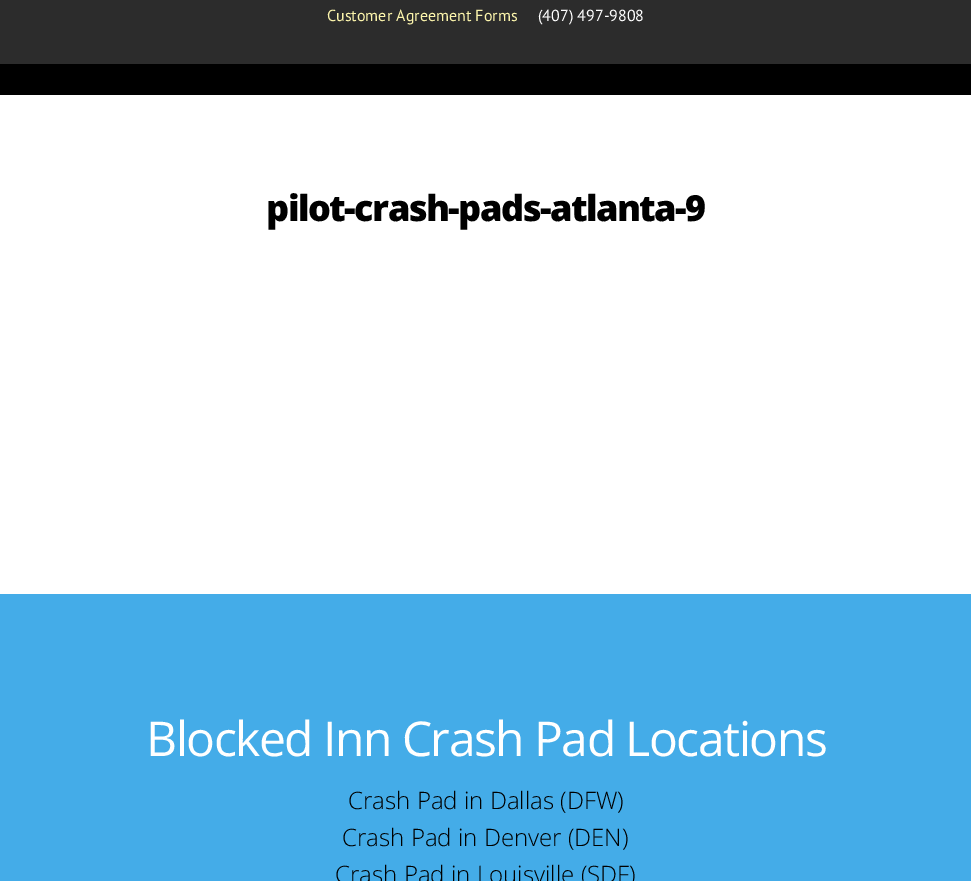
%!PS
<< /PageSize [971 881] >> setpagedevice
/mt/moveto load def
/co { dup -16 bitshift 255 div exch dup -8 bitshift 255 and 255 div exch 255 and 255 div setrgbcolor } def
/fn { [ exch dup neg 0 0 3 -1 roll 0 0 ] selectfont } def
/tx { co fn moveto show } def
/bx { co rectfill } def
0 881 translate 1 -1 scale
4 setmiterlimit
0 0 971 881 16#FFFFFF bx
0 0 971 64 16#2C2C2C bx
0 64 971 31 16#000000 bx
0 594 971 287 16#44ACE8 bx
(Customer Agreement Forms) 327 21 /PTSans-Regular 16 16#FCF5AC tx
(\(407\) 497-9808) 538 21 /PTSans-Regular 16 16#FFFFFF tx
/OpenSans-ExtraBold 36 fn
16#000000 co
266 221 mt -1.5 0 (pilot-crash-pads-atlanta-9) ashow
/OpenSans-Regular 48 fn
16#FFFFFF co
146 756 mt -1.5 0 (Blocked Inn Crash Pad Locations) ashow
(Crash Pad in Dallas \(DFW\)) 348 809 /OpenSans-Light 24 16#000000 tx
(Crash Pad in Denver \(DEN\)) 342 846 /OpenSans-Light 24 16#000000 tx
(Crash Pad in Louisville \(SDF\)) 335 883 /OpenSans-Light 24 16#000000 tx
showpage
